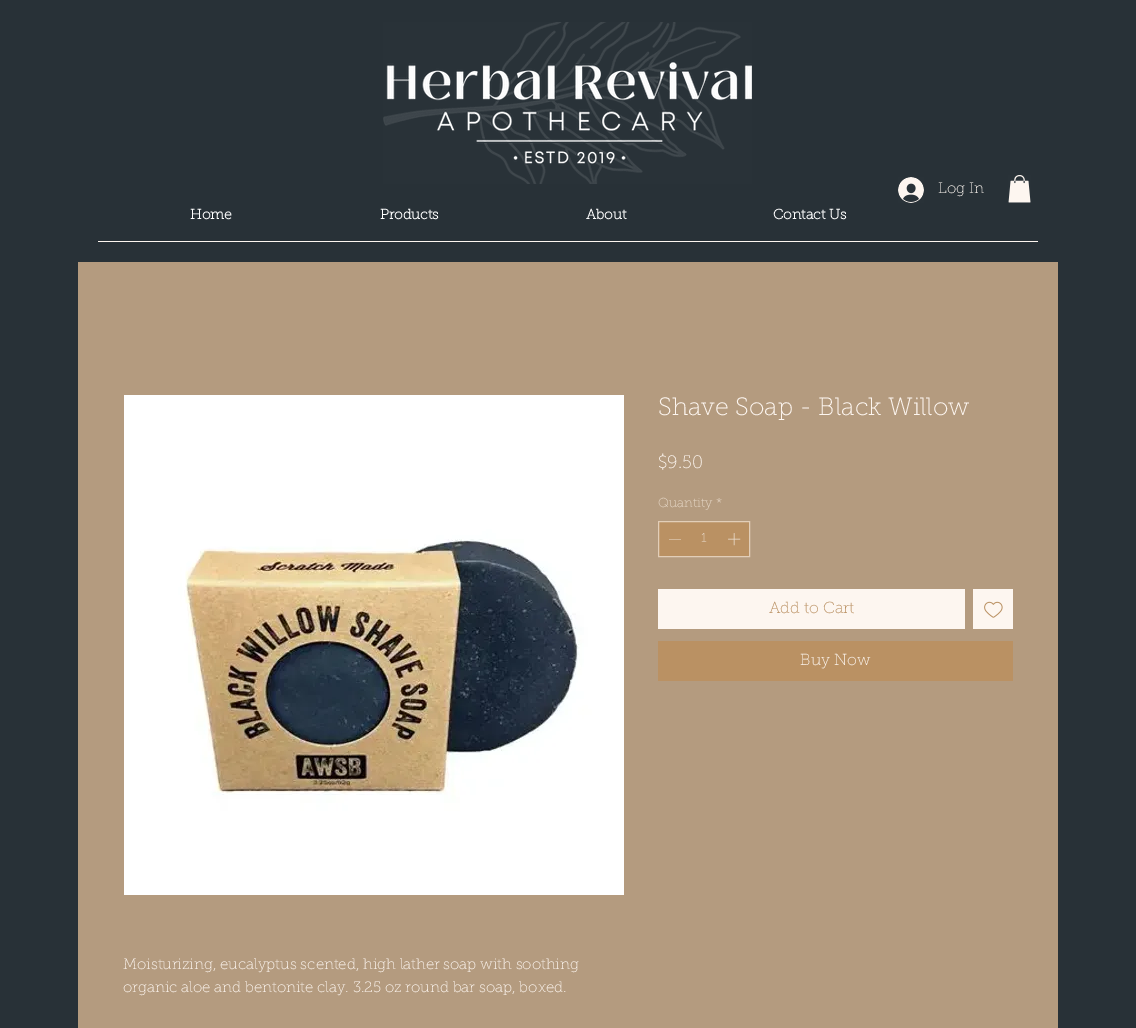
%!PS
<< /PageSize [1136 1028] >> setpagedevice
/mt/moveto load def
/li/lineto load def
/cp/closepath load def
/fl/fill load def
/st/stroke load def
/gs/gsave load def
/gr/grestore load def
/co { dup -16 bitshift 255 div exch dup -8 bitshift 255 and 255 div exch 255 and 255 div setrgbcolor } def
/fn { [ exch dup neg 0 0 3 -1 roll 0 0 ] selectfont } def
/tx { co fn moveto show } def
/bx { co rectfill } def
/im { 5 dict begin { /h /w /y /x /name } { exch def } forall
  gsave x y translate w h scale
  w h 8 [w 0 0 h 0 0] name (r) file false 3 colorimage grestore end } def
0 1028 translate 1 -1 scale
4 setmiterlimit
0 0 1136 1028 16#283137 bx
(media/1.raw) 383 22 369 162 im
(media/2.raw) 898 177 26 26 im
(media/3.raw) 1008 175 23 28 im
98 241 940 1 16#FDF6F0 bx
78 262 980 766 16#B49B7F bx
16#BA9163 co
658.5 521.5 mt 749.5 521.5 li 749.5 556.5 li 658.5 556.5 li cp gs fl gr
16#E2CEB8 co
st
16#E9DBCB co
681 539 mt 681 539.5 li 669 539.5 li 669 539 li cp eofill
(media/4.raw) 728 533 13 13 im
658 589 307 40 16#FDF6F0 bx
973 589 40 40 16#FDF6F0 bx
(media/5.raw) 984 601 19 17 im
658 641 355 40 16#BA9163 bx
(media/6.raw) 124 395 500 500 im
(Log In) 938 193 /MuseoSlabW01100-Thin 15 16#FDF6F0 tx
(Home) 190 219 /MuseoSlabW01100-Bold 14 16#FFFFFF tx
(Products) 380 219 /MuseoSlabW01100-Bold 14 16#FFFFFF tx
(About) 586 219 /MuseoSlabW01100-Bold 14 16#FFFFFF tx
(Contact Us) 773 219 /MuseoSlabW01100-Bold 14 16#FFFFFF tx
(Shave Soap - Black Willow) 658 415 /MuseoSlabW01100-Thin 25 16#FDF6F0 tx
($9.50) 658 468 /MuseoSlabW01100-Thin 18 16#FDF6F0 tx
(Quantity) 658 507 /MuseoSlabW01100-Thin 13 16#E9DBCB tx
(*) 716 507 /MuseoSlabW01100-Thin 13 16#E9DBCB tx
(1) 701 542 /MuseoSlabW01100-Thin 13 16#E9DBCB tx
(Add to Cart) 769 613 /MuseoSlabW01100-Thin 16 16#BA9163 tx
(Buy Now) 800 665 /MuseoSlabW01100-Thin 16 16#FDF6F0 tx
(Moisturizing, eucalyptus scented, high lather soap with soothing) 123 969 /MuseoSlabW01100-Thin 15 16#FDF6F0 tx
(organic aloe and bentonite clay. 3.25 oz round bar soap, boxed.) 123 992 /MuseoSlabW01100-Thin 15 16#FDF6F0 tx
showpage
